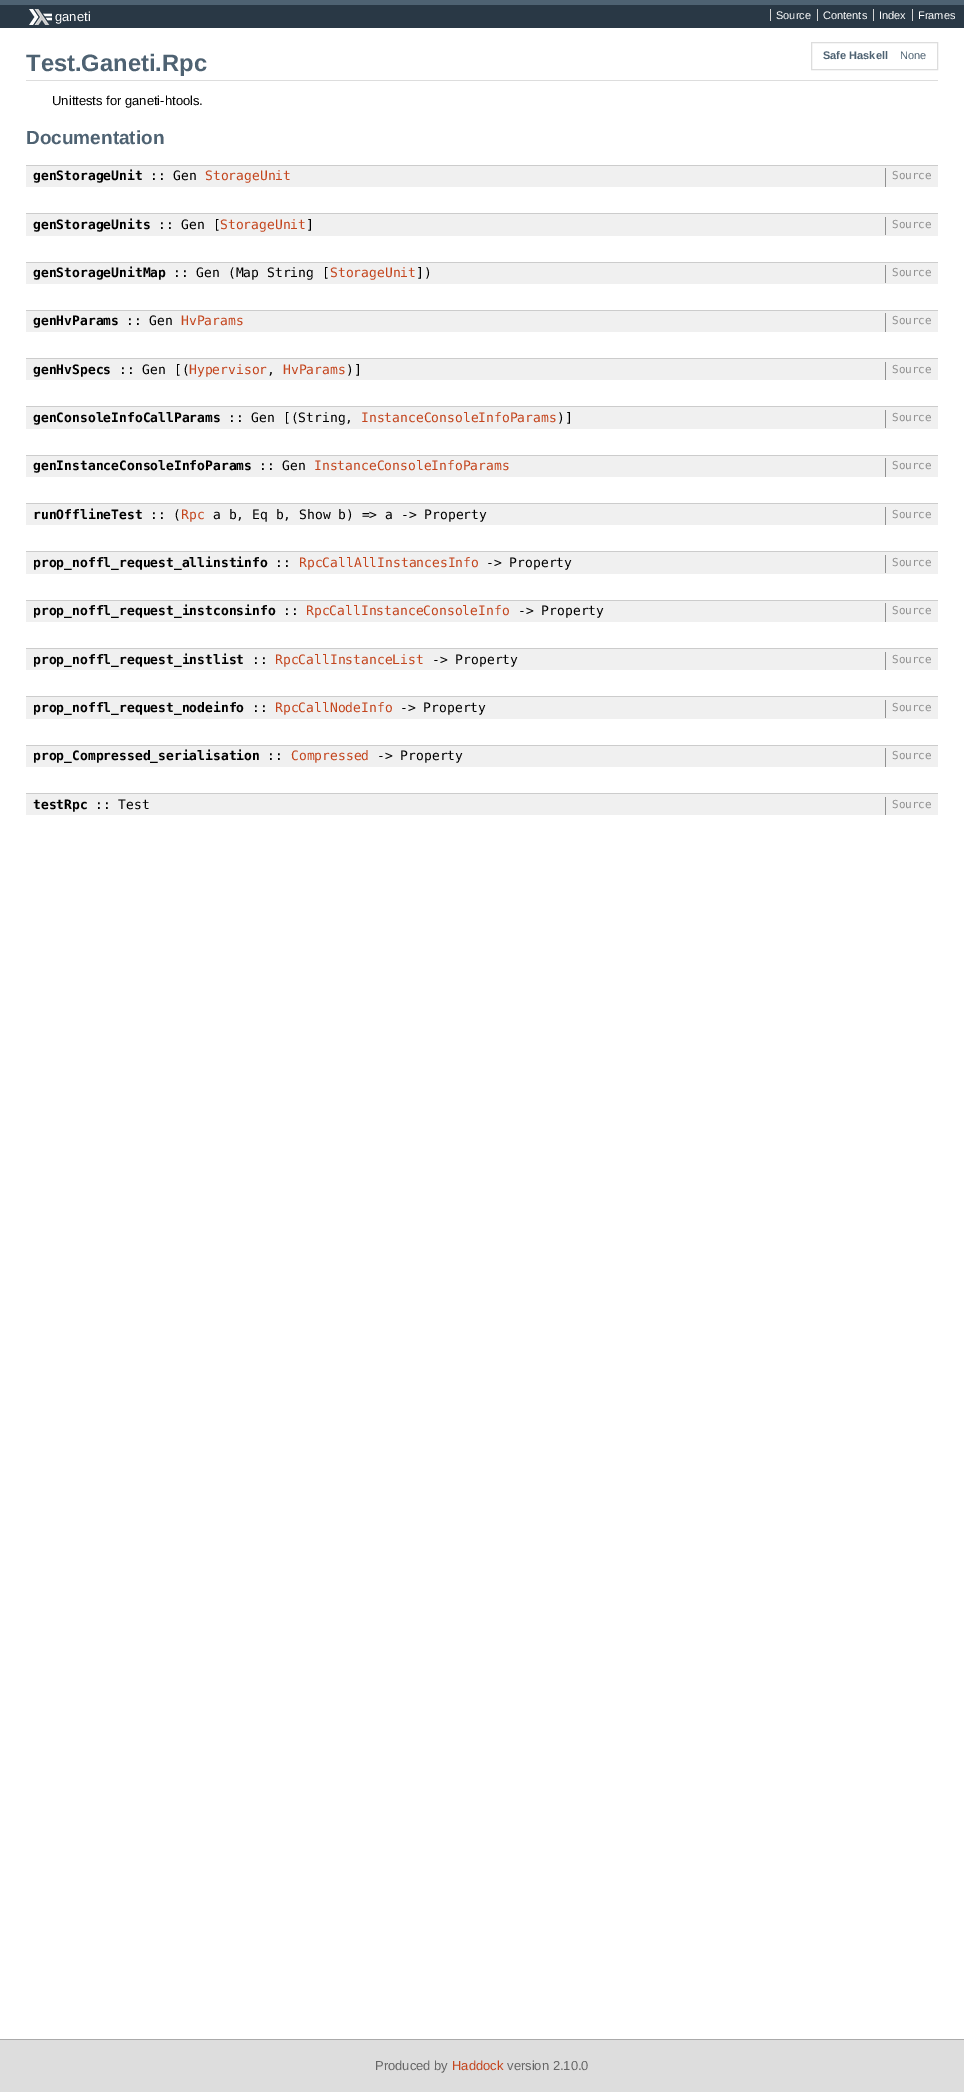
%!PS
<< /PageSize [964 2092] >> setpagedevice
/co { dup -16 bitshift 255 div exch dup -8 bitshift 255 and 255 div exch 255 and 255 div setrgbcolor } def
/fn { [ exch dup neg 0 0 3 -1 roll 0 0 ] selectfont } def
/tx { co fn moveto show } def
/bx { co rectfill } def
/im { 5 dict begin { /h /w /y /x /name } { exch def } forall
  gsave x y translate w h scale
  w h 8 [w 0 0 h 0 0] name (r) file false 3 colorimage grestore end } def
0 2092 translate 1 -1 scale
4 setmiterlimit
0 0 964 2092 16#FFFFFF bx
0 5 964 23 16#293845 bx
0 0 964 5 16#4E6272 bx
(media/1.raw) 29 9 23 16 im
770 9 1 12 16#D5D5D5 bx
817 9 1 12 16#D5D5D5 bx
873 9 1 12 16#D5D5D5 bx
912 9 1 12 16#D5D5D5 bx
26 80 912 1 16#DDDDDD bx
811.5 42.5 126 27 rectstroke
26 166 912 21 16#F0F0F0 bx
26 165 912 1 16#CCCCCC bx
885 168 1 19 16#919191 bx
26 214 912 22 16#F0F0F0 bx
26 213 912 1 16#CCCCCC bx
885 217 1 18 16#919191 bx
26 263 912 21 16#F0F0F0 bx
26 262 912 1 16#CCCCCC bx
885 265 1 18 16#919191 bx
26 311 912 21 16#F0F0F0 bx
26 310 912 1 16#CCCCCC bx
885 313 1 19 16#919191 bx
26 359 912 21 16#F0F0F0 bx
26 358 912 1 16#CCCCCC bx
885 362 1 18 16#919191 bx
26 407 912 22 16#F0F0F0 bx
26 406 912 1 16#CCCCCC bx
885 410 1 18 16#919191 bx
26 456 912 21 16#F0F0F0 bx
26 455 912 1 16#CCCCCC bx
885 458 1 19 16#919191 bx
26 504 912 21 16#F0F0F0 bx
26 503 912 1 16#CCCCCC bx
885 507 1 18 16#919191 bx
26 552 912 22 16#F0F0F0 bx
26 551 912 1 16#CCCCCC bx
885 555 1 18 16#919191 bx
26 601 912 21 16#F0F0F0 bx
26 600 912 1 16#CCCCCC bx
885 603 1 19 16#919191 bx
26 649 912 21 16#F0F0F0 bx
26 648 912 1 16#CCCCCC bx
885 652 1 18 16#919191 bx
26 697 912 22 16#F0F0F0 bx
26 696 912 1 16#CCCCCC bx
885 700 1 18 16#919191 bx
26 746 912 21 16#F0F0F0 bx
26 745 912 1 16#CCCCCC bx
885 748 1 19 16#919191 bx
26 794 912 21 16#F0F0F0 bx
26 793 912 1 16#CCCCCC bx
885 797 1 18 16#919191 bx
0 2040 964 52 16#DDDDDD bx
0 2039 964 1 16#AAAAAA bx
(ganeti) 55 21 /LiberationSans-Regular 13 16#FFFFFF tx
(Source) 776 19 /LiberationSans-Regular 11 16#FFFFFF tx
(Contents) 823 19 /LiberationSans-Regular 11 16#FFFFFF tx
(Index) 879 19 /LiberationSans-Regular 11 16#FFFFFF tx
(Frames) 918 19 /LiberationSans-Regular 11 16#FFFFFF tx
(Test.Ganeti.Rpc) 26 71 /LiberationSans-Bold 23.75 16#4E6272 tx
(Safe Haskell) 823 59 /LiberationSans-Bold 11 16#4E6272 tx
(None) 900 59 /LiberationSans-Regular 11 16#4E6272 tx
(Unittests for ganeti-htools.) 52 105 /LiberationSans-Regular 13 16#000000 tx
(Documentation) 26 144 /LiberationSans-Bold 19 16#4E6272 tx
(genStorageUnit) 33 180 /DejaVuSansMono-Bold 13 16#000000 tx
(:: Gen) 150 180 /DejaVuSansMono-Regular 13 16#000000 tx
(StorageUnit) 205 180 /DejaVuSansMono-Regular 13 16#C4451D tx
(Source) 892 179 /DejaVuSansMono-Regular 11 16#919191 tx
(genStorageUnits) 33 229 /DejaVuSansMono-Bold 13 16#000000 tx
(:: Gen [) 158 229 /DejaVuSansMono-Regular 13 16#000000 tx
(StorageUnit) 220 229 /DejaVuSansMono-Regular 13 16#C4451D tx
(]) 306 229 /DejaVuSansMono-Regular 13 16#000000 tx
(Source) 892 228 /DejaVuSansMono-Regular 11 16#919191 tx
(genStorageUnitMap) 33 277 /DejaVuSansMono-Bold 13 16#000000 tx
(:: Gen \(Map String [) 173 277 /DejaVuSansMono-Regular 13 16#000000 tx
(StorageUnit) 330 277 /DejaVuSansMono-Regular 13 16#C4451D tx
(]\)) 416 277 /DejaVuSansMono-Regular 13 16#000000 tx
(Source) 892 276 /DejaVuSansMono-Regular 11 16#919191 tx
(genHvParams) 33 325 /DejaVuSansMono-Bold 13 16#000000 tx
(:: Gen) 126 325 /DejaVuSansMono-Regular 13 16#000000 tx
(HvParams) 181 325 /DejaVuSansMono-Regular 13 16#C4451D tx
(Source) 892 324 /DejaVuSansMono-Regular 11 16#919191 tx
(genHvSpecs) 33 374 /DejaVuSansMono-Bold 13 16#000000 tx
(:: Gen [\() 119 374 /DejaVuSansMono-Regular 13 16#000000 tx
(Hypervisor) 189 374 /DejaVuSansMono-Regular 13 16#C4451D tx
(,) 267 374 /DejaVuSansMono-Regular 13 16#000000 tx
(HvParams) 283 374 /DejaVuSansMono-Regular 13 16#C4451D tx
(\)]) 346 374 /DejaVuSansMono-Regular 13 16#000000 tx
(Source) 892 373 /DejaVuSansMono-Regular 11 16#919191 tx
(genConsoleInfoCallParams) 33 422 /DejaVuSansMono-Bold 13 16#000000 tx
(:: Gen [\(String,) 228 422 /DejaVuSansMono-Regular 13 16#000000 tx
(InstanceConsoleInfoParams) 361 422 /DejaVuSansMono-Regular 13 16#C4451D tx
(\)]) 557 422 /DejaVuSansMono-Regular 13 16#000000 tx
(Source) 892 421 /DejaVuSansMono-Regular 11 16#919191 tx
(genInstanceConsoleInfoParams) 33 470 /DejaVuSansMono-Bold 13 16#000000 tx
(:: Gen) 259 470 /DejaVuSansMono-Regular 13 16#000000 tx
(InstanceConsoleInfoParams) 314 470 /DejaVuSansMono-Regular 13 16#C4451D tx
(Source) 892 469 /DejaVuSansMono-Regular 11 16#919191 tx
(runOfflineTest) 33 519 /DejaVuSansMono-Bold 13 16#000000 tx
(:: \() 150 519 /DejaVuSansMono-Regular 13 16#000000 tx
(Rpc) 181 519 /DejaVuSansMono-Regular 13 16#C4451D tx
(a b, Eq b, Show b\) => a -> Property) 213 519 /DejaVuSansMono-Regular 13 16#000000 tx
(Source) 892 518 /DejaVuSansMono-Regular 11 16#919191 tx
(prop_noffl_request_allinstinfo) 33 567 /DejaVuSansMono-Bold 13 16#000000 tx
(::) 275 567 /DejaVuSansMono-Regular 13 16#000000 tx
(RpcCallAllInstancesInfo) 299 567 /DejaVuSansMono-Regular 13 16#C4451D tx
(-> Property) 486 567 /DejaVuSansMono-Regular 13 16#000000 tx
(Source) 892 566 /DejaVuSansMono-Regular 11 16#919191 tx
(prop_noffl_request_instconsinfo) 33 615 /DejaVuSansMono-Bold 13 16#000000 tx
(::) 283 615 /DejaVuSansMono-Regular 13 16#000000 tx
(RpcCallInstanceConsoleInfo) 306 615 /DejaVuSansMono-Regular 13 16#C4451D tx
(-> Property) 518 615 /DejaVuSansMono-Regular 13 16#000000 tx
(Source) 892 614 /DejaVuSansMono-Regular 11 16#919191 tx
(prop_noffl_request_instlist) 33 664 /DejaVuSansMono-Bold 13 16#000000 tx
(::) 252 664 /DejaVuSansMono-Regular 13 16#000000 tx
(RpcCallInstanceList) 275 664 /DejaVuSansMono-Regular 13 16#C4451D tx
(-> Property) 432 664 /DejaVuSansMono-Regular 13 16#000000 tx
(Source) 892 663 /DejaVuSansMono-Regular 11 16#919191 tx
(prop_noffl_request_nodeinfo) 33 712 /DejaVuSansMono-Bold 13 16#000000 tx
(::) 252 712 /DejaVuSansMono-Regular 13 16#000000 tx
(RpcCallNodeInfo) 275 712 /DejaVuSansMono-Regular 13 16#C4451D tx
(-> Property) 400 712 /DejaVuSansMono-Regular 13 16#000000 tx
(Source) 892 711 /DejaVuSansMono-Regular 11 16#919191 tx
(prop_Compressed_serialisation) 33 760 /DejaVuSansMono-Bold 13 16#000000 tx
(::) 267 760 /DejaVuSansMono-Regular 13 16#000000 tx
(Compressed) 291 760 /DejaVuSansMono-Regular 13 16#C4451D tx
(-> Property) 377 760 /DejaVuSansMono-Regular 13 16#000000 tx
(Source) 892 759 /DejaVuSansMono-Regular 11 16#919191 tx
(testRpc) 33 809 /DejaVuSansMono-Bold 13 16#000000 tx
(:: Test) 95 809 /DejaVuSansMono-Regular 13 16#000000 tx
(Source) 892 808 /DejaVuSansMono-Regular 11 16#919191 tx
(Produced by) 375 2070 /LiberationSans-Regular 13 16#666666 tx
(Haddock) 452 2070 /LiberationSans-Regular 13 16#C4451D tx
(version 2.10.0) 507 2070 /LiberationSans-Regular 13 16#666666 tx
showpage
